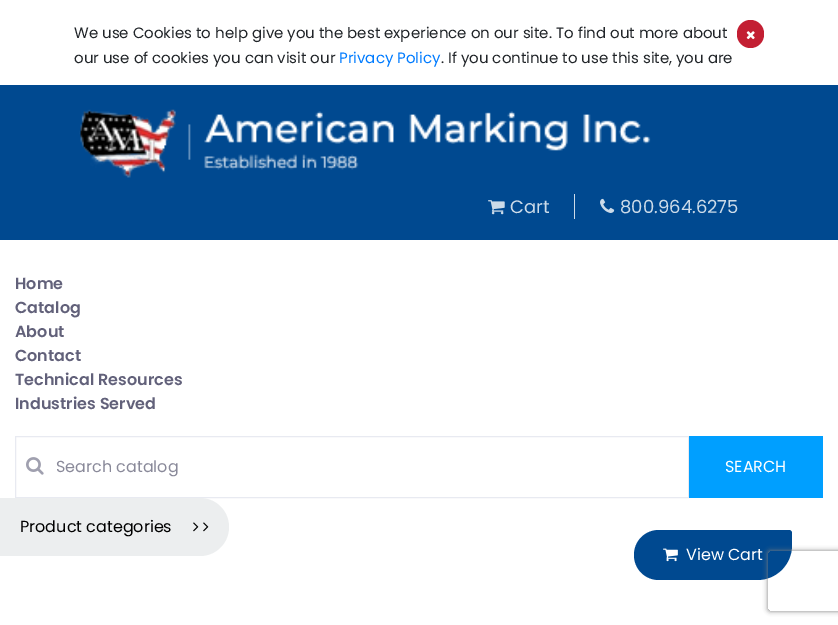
%!PS
<< /PageSize [838 625] /PageUsesTransparency true >> setpagedevice
/mt/moveto load def
/li/lineto load def
/ct/curveto load def
/cp/closepath load def
/fl/fill load def
/gs/gsave load def
/gr/grestore load def
/co { dup -16 bitshift 255 div exch dup -8 bitshift 255 and 255 div exch 255 and 255 div setrgbcolor } def
/fn { [ exch dup neg 0 0 3 -1 roll 0 0 ] selectfont } def
/tx { co fn moveto show } def
/bx { co rectfill } def
/al { dup .setfillconstantalpha .setstrokeconstantalpha } def
/rr { 5 dict begin { /r /h /w /y /x } { exch def } forall
  x r add y moveto x w add y 2 copy h add r arct x w add y h add x 1 index r arct
  x y h add x y r arct x y 2 copy exch w add exch r arct closepath end } def
/sh { 12 dict begin { /a /b /q /h /w /y /x } { exch def } forall gsave /was 0 def
  9 -2 -9 { dup b mul 4 div /e exch def 1 sub .425 mul 2.718 exch exp 1 add a .99 .min exch div /now exch def
    1 1 now sub 1 was sub div sub al /was now def
    w h .min e 2 mul add 0 gt { x e sub y e sub w e 2 mul add h e 2 mul add
      q e add b .6 mul add w h .min 2 div e add .min 0 .max rr fill } if } for grestore end } def
/im { 5 dict begin { /h /w /y /x /name } { exch def } forall
  gsave x y translate w h scale
  w h 8 [w 0 0 h 0 0] name (r) file false 3 colorimage grestore end } def
0 .pushpdf14devicefilter
0 625 translate 1 -1 scale
4 setmiterlimit
0 0 838 625 16#FFFFFF bx
16#C31F33 co
737 20 27 28 13.5 rr fl
(media/1.raw) 746 31 9 9 im
0 85 838 155 16#004990 bx
(media/2.raw) 79 109 572 69 im
574 194 1 25 16#CCDBE9 bx
(media/3.raw) 488 200 17 15 im
(media/4.raw) 600 198 15 15 im
16#E8EAF1 co
15.5 436.5 673 61 rectstroke
(media/5.raw) 26 457 18 18 im
689 436 134 62 16#009FFF bx
16#ECEEEF co
0 498 mt 200 498 li 216 498 229 511 229 527 ct 229 543 216 556 200 556 ct 0 556 li cp fl
(media/6.raw) 193 522 6 10 im
(media/6.raw) 203 522 6 10 im
16#004990 co
659 530 mt 789 530 li 790.5 530 792 531.5 792 533 ct 792 545 li 792 564.5 776.5 580 757 580 ct 659 580 li 645 580 634 569 634 555 ct 634 541 645 530 659 530 ct cp fl
(media/7.raw) 663 548 15 14 im
gs
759 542 mt 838 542 li 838 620 li 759 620 li cp 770 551 mt 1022 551 li 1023 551 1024 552 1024 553 ct 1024 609 li 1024 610 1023 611 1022 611 ct 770 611 li 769 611 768 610 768 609 ct 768 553 li 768 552 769 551 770 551 ct cp eoclip newpath
16#808080 co
768 551 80 60 2 2.5 1 sh
gr
(We use Cookies to help give you the best experience on our site. To find out more about) 74 38 /Poppins-Regular 15 16#212529 tx
(our use of cookies you can visit our) 74 63 /Poppins-Regular 15 16#212529 tx
(Privacy Policy) 339 63 /Poppins-Regular 15 16#007BFF tx
(. If you continue to use this site, you are) 441 63 /Poppins-Regular 15 16#212529 tx
(Cart) 510 213 /Poppins-Regular 18 16#CCDBE9 tx
(800.964.6275) 620 213 /Poppins-Regular 18 16#CCDBE9 tx
(Home) 15 289 /Poppins-SemiBold 16 16#62617A tx
(Catalog) 15 313 /Poppins-SemiBold 16 16#62617A tx
(About) 15 337 /Poppins-SemiBold 16 16#62617A tx
(Contact) 15 361 /Poppins-SemiBold 16 16#62617A tx
(Technical Resources) 15 385 /Poppins-SemiBold 16 16#62617A tx
(Industries Served) 15 409 /Poppins-SemiBold 16 16#62617A tx
(Search catalog) 56 472 /Poppins-Regular 16 16#898999 tx
(SEARCH) 725 472 /Poppins-Regular 16 16#FFFFFF tx
(Product categories) 20 532 /Poppins-Regular 16 16#000000 tx
(View Cart) 686 560 /Poppins-Regular 16 16#FFFFFF tx
.poppdf14devicefilter showpage
